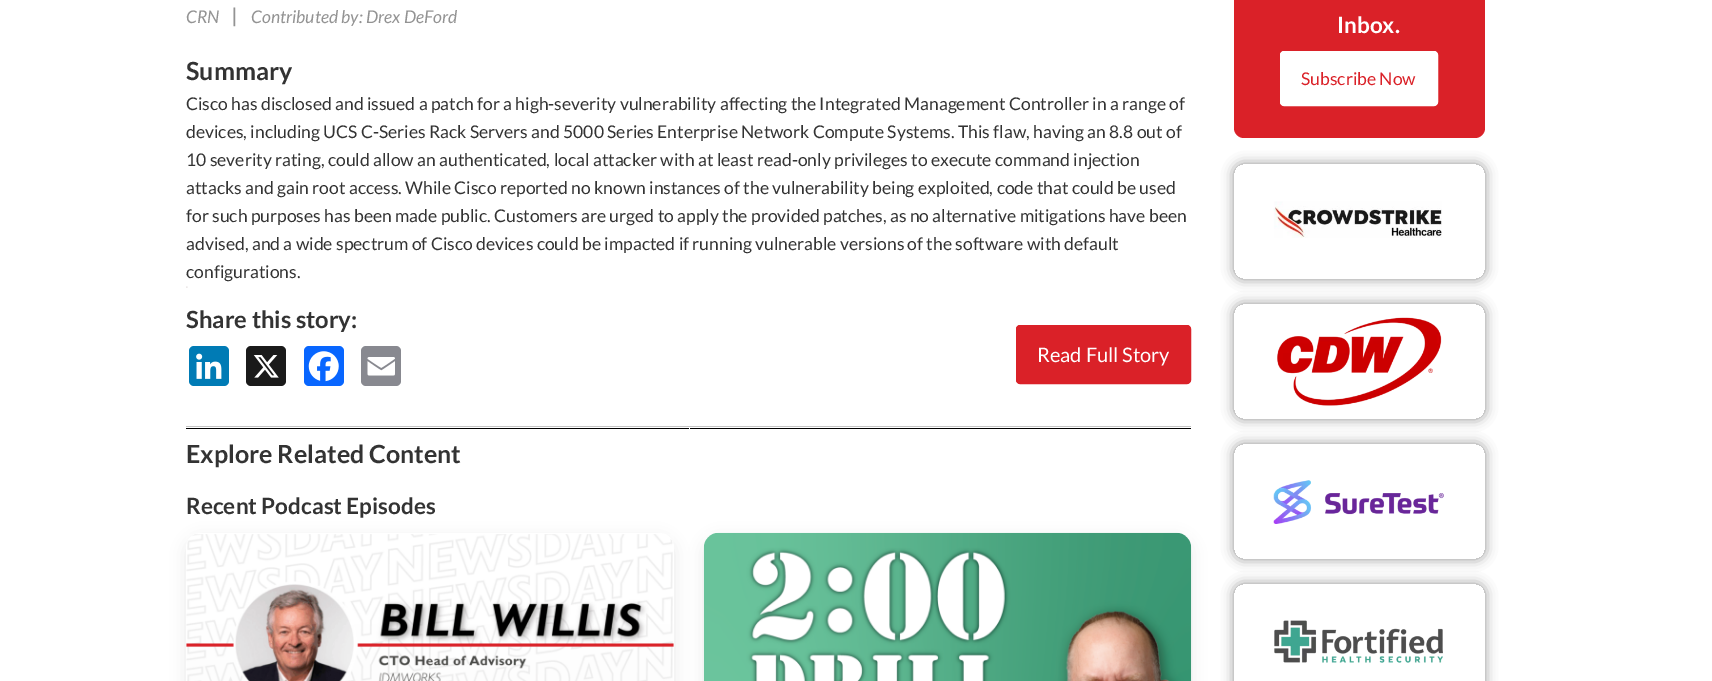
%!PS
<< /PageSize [1712 681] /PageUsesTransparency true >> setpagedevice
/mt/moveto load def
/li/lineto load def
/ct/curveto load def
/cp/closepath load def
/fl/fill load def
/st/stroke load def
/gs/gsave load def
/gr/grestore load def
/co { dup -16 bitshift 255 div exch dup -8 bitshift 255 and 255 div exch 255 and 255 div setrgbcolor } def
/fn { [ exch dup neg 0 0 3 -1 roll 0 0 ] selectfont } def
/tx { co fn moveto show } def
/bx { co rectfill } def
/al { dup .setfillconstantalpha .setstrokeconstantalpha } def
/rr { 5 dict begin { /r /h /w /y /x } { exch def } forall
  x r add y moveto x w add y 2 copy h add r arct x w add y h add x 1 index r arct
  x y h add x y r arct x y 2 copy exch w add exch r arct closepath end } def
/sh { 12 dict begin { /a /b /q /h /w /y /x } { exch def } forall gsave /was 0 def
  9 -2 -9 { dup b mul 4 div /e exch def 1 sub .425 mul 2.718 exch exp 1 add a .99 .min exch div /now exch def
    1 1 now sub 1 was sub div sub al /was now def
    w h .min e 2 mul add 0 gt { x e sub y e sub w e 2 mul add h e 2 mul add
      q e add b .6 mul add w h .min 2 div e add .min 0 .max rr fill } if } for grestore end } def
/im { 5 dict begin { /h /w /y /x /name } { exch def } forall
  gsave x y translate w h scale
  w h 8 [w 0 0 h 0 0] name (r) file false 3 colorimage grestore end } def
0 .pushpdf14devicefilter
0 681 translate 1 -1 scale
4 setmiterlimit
0 0 1712 681 16#FFFFFF bx
(media/1.raw) 186 286 2 2 im
16#007BB5 co
189 346 40 40 5 rr fl
(media/2.raw) 196 353 26 26 im
16#1A1A1A co
246 346 40 40 5 rr fl
(media/3.raw) 253 355 26 23 im
16#0866FF co
304 346 40 40 5 rr fl
(media/4.raw) 308 351 31 31 im
16#888990 co
361 346 40 40 5 rr fl
(media/5.raw) 367 357 28 19 im
16#DA2128 co
1016.5 325.5 174 58 3.5 rr gs fl gr
st
186 426 1005 1 16#C4C4C4 bx
186 428 503 1 16#000000 bx
690 428 501 1 16#000000 bx
186 538 488 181 15 7.5 .08 sh
16#FFFFFF co
186 533 488 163 15 rr fl
(media/6.raw) 186 534 488 147 im
16#000000 co
704 538 487 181 15 7.5 .08 sh
(media/7.raw) 703 532 489 149 im
16#DA2128 co
1234 -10 251 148 10 rr fl
16#FFFFFF co
1280.5 51.5 157 54 3.5 rr gs fl gr
st
gs
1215 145 mt 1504 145 li 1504 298 li 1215 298 li cp 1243 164 mt 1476 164 li 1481 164 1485 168 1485 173 ct 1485 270 li 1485 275 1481 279 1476 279 ct 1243 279 li 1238 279 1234 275 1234 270 ct 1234 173 li 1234 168 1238 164 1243 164 ct cp eoclip newpath
16#000000 co
1234 164 251 115 9 6 .43 sh
gr
(media/8.raw) 1273 201 169 37 im
gs
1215 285 mt 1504 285 li 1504 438 li 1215 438 li cp 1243 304 mt 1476 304 li 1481 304 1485 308 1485 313 ct 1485 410 li 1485 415 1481 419 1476 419 ct 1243 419 li 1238 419 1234 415 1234 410 ct 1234 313 li 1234 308 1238 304 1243 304 ct cp eoclip newpath
16#000000 co
1234 304 251 115 9 6 .43 sh
gr
(media/9.raw) 1277 317 165 89 im
gs
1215 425 mt 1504 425 li 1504 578 li 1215 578 li cp 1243 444 mt 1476 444 li 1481 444 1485 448 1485 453 ct 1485 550 li 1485 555 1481 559 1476 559 ct 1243 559 li 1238 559 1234 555 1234 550 ct 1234 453 li 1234 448 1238 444 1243 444 ct cp eoclip newpath
16#000000 co
1234 444 251 115 9 6 .43 sh
gr
(media/10.raw) 1273 480 171 44 im
gs
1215 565 mt 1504 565 li 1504 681 li 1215 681 li cp 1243 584 mt 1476 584 li 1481 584 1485 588 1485 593 ct 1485 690 li 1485 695 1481 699 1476 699 ct 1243 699 li 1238 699 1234 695 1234 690 ct 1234 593 li 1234 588 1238 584 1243 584 ct cp eoclip newpath
16#000000 co
1234 584 251 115 9 6 .43 sh
gr
(media/11.raw) 1274 620 169 43 im
(CRN) 186 23 /Lato-Italic 17.5 16#939393 tx
(|) 232 23 /Lato-BoldItalic 20 16#939393 tx
(Contributed by: Drex DeFord) 251 23 /Lato-Italic 17.5 16#939393 tx
(Summary) 186 80 /Lato-Bold 25 16#333333 tx
(Cisco has disclosed and issued a patch for a high-severity vulnerability affecting the Integrated Management Controller in a range of) 186 110 /Lato-Regular 17.5 16#333333 tx
(devices, including UCS C-Series Rack Servers and 5000 Series Enterprise Network Compute Systems. This flaw, having an 8.8 out of) 186 138 /Lato-Regular 17.5 16#333333 tx
(10 severity rating, could allow an authenticated, local attacker with at least read-only privileges to execute command injection) 186 166 /Lato-Regular 17.5 16#333333 tx
(attacks and gain root access. While Cisco reported no known instances of the vulnerability being exploited, code that could be used) 186 194 /Lato-Regular 17.5 16#333333 tx
(for such purposes has been made public. Customers are urged to apply the provided patches, as no alternative mitigations have been) 186 222 /Lato-Regular 17.5 16#333333 tx
(advised, and a wide spectrum of Cisco devices could be impacted if running vulnerable versions of the software with default) 186 250 /Lato-Regular 17.5 16#333333 tx
(configurations.) 186 278 /Lato-Regular 17.5 16#333333 tx
(Share this story:) 186 328 /Lato-Bold 23.75 16#333333 tx
(Read Full Story) 1037 362 /Lato-Regular 20 16#FFFFFF tx
(Explore Related Content) 186 463 /Lato-Bold 25 16#333333 tx
(Recent Podcast Episodes) 186 514 /Lato-Bold 22.5 16#333333 tx
(Inbox.) 1337 33 /Lato-Bold 22.5 16#FFFFFF tx
(Subscribe Now) 1301 85 /Lato-Regular 17.5 16#DA2128 tx
.poppdf14devicefilter showpage
